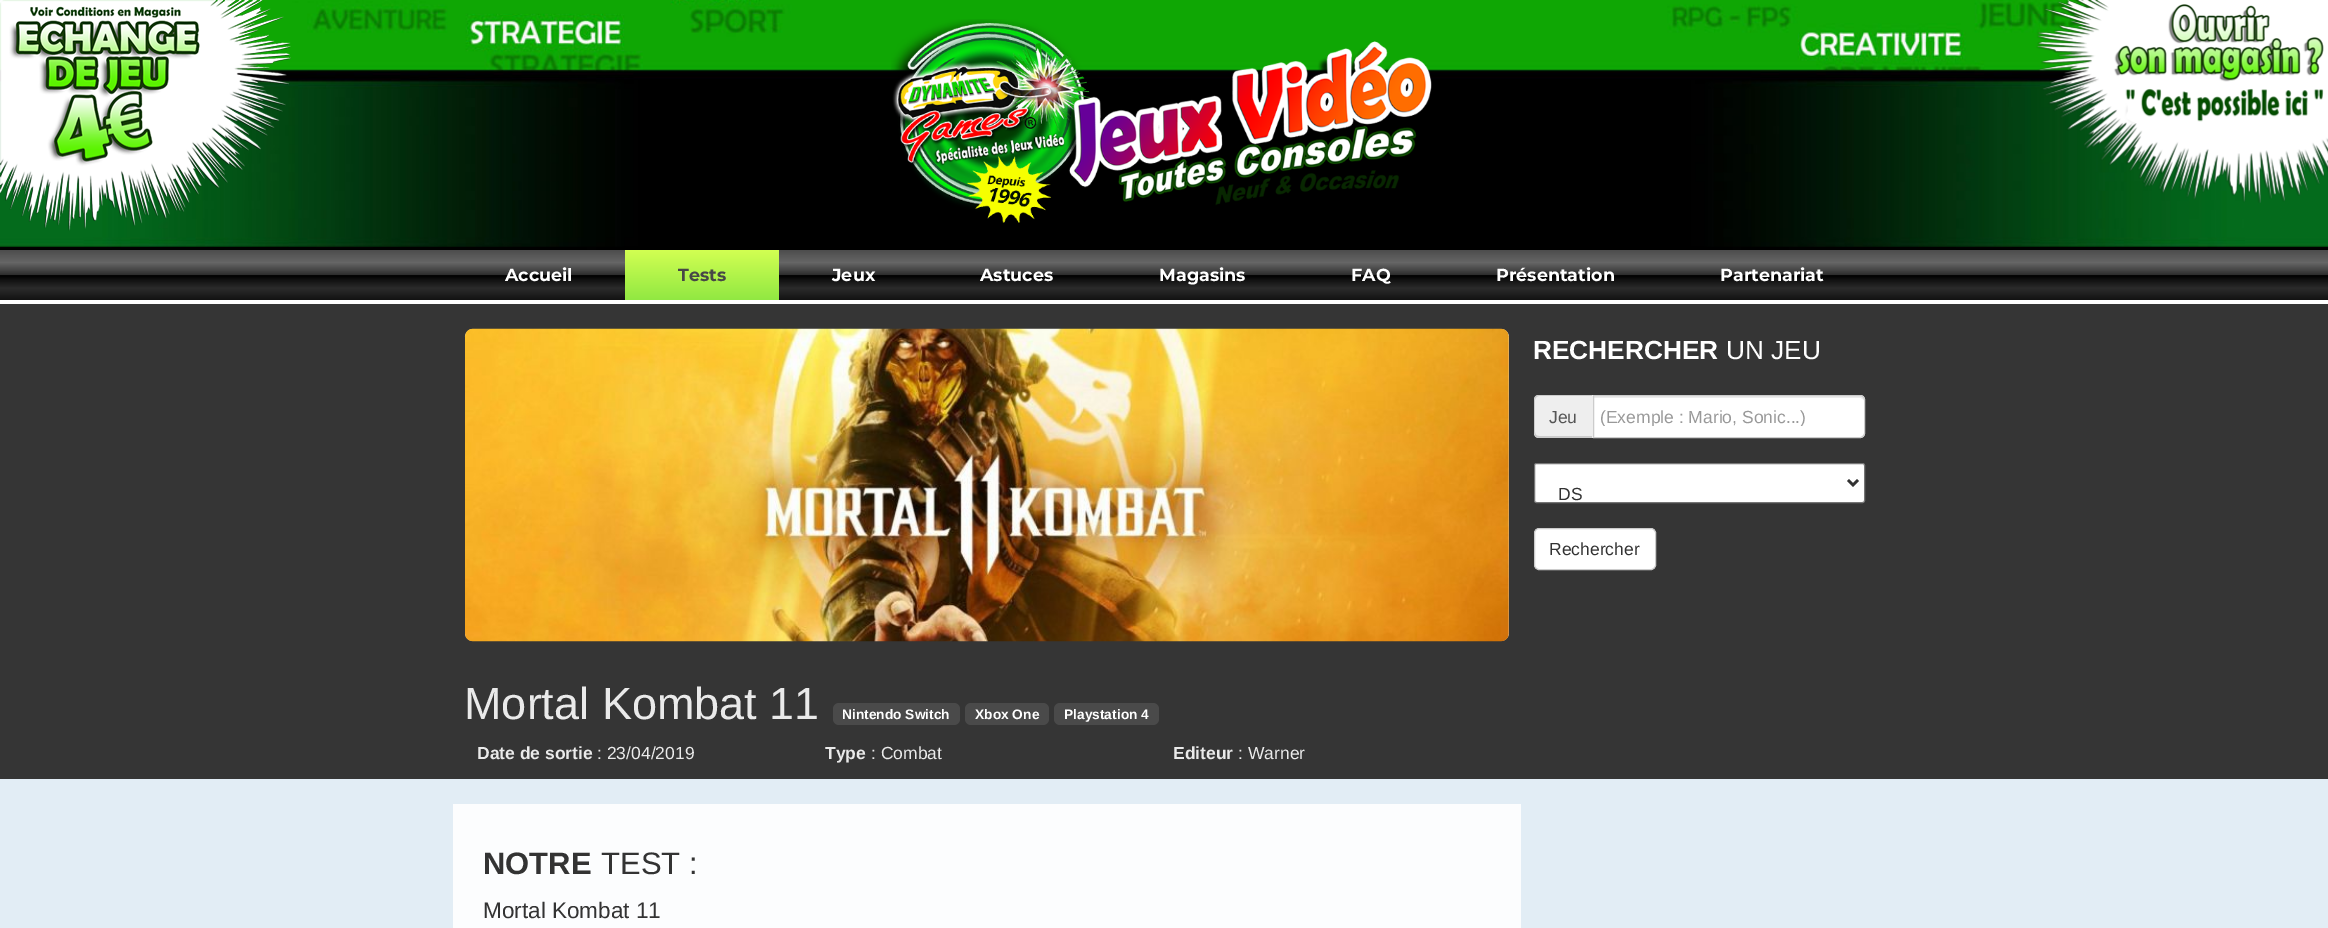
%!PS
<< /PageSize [2328 928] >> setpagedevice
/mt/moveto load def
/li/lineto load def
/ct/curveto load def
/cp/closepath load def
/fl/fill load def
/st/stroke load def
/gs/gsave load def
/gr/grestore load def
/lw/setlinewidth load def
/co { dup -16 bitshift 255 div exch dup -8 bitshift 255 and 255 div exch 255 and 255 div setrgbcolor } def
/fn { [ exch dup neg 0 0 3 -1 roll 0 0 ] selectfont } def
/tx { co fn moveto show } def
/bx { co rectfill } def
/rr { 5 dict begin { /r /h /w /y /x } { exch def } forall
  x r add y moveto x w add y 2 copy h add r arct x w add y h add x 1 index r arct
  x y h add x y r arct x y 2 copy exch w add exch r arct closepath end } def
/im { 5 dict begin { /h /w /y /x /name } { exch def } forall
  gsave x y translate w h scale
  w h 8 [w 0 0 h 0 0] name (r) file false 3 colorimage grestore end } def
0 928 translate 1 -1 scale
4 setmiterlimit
0 0 2328 928 16#FFFFFF bx
gs 0 0 mt 2328 0 li 2328 928 li 0 928 li cp clip newpath
<< /ShadingType 2 /ColorSpace /DeviceRGB /Coords [1164 0 1164 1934] /Extend [true true] /Function << /FunctionType 3 /Domain [0 1] /Functions [<< /FunctionType 2 /Domain [0 1] /C0 [.886 .929 .961] /C1 [.886 .929 .961] /N 1 >> << /FunctionType 2 /Domain [0 1] /C0 [.886 .929 .961] /C1 [.51 .682 1] /N 1 >>] /Bounds [.66] /Encode [0 1 0 1] >> >> shfill gr
(media/1.raw) 0 0 2328 250 im
(media/2.raw) 0 0 291 231 im
(media/3.raw) 891 19 541 204 im
(media/4.raw) 2036 0 292 203 im
gs 0 250 mt 2328 250 li 2328 300 li 0 300 li cp clip newpath
<< /ShadingType 2 /ColorSpace /DeviceRGB /Coords [1164 250 1164 300] /Extend [true true] /Function << /FunctionType 3 /Domain [0 1] /Functions [<< /FunctionType 2 /Domain [0 1] /C0 [.298 .298 .298] /C1 [.349 .349 .349] /N 1 >> << /FunctionType 2 /Domain [0 1] /C0 [.349 .349 .349] /C1 [.4 .4 .4] /N 1 >> << /FunctionType 2 /Domain [0 1] /C0 [.4 .4 .4] /C1 [.278 .278 .278] /N 1 >> << /FunctionType 2 /Domain [0 1] /C0 [.278 .278 .278] /C1 [.173 .173 .173] /N 1 >> << /FunctionType 2 /Domain [0 1] /C0 [.173 .173 .173] /C1 [0 0 0] /N 1 >> << /FunctionType 2 /Domain [0 1] /C0 [0 0 0] /C1 [.067 .067 .067] /N 1 >> << /FunctionType 2 /Domain [0 1] /C0 [.067 .067 .067] /C1 [.169 .169 .169] /N 1 >> << /FunctionType 2 /Domain [0 1] /C0 [.169 .169 .169] /C1 [.11 .11 .11] /N 1 >> << /FunctionType 2 /Domain [0 1] /C0 [.11 .11 .11] /C1 [.075 .075 .075] /N 1 >>] /Bounds [.12 .25 .39 .5 .51 .6 .76 .91] /Encode [0 1 0 1 0 1 0 1 0 1 0 1 0 1 0 1 0 1] >> >> shfill gr
0 300 2328 4 16#FFFFFF bx
gs 625 250 mt 779 250 li 779 300 li 625 300 li cp clip newpath
<< /ShadingType 2 /ColorSpace /DeviceRGB /Coords [702 250 702 300] /Extend [true true] /Function << /FunctionType 2 /Domain [0 1] /C0 [.824 1 .322] /C1 [.569 .91 .259] /N 1 >> >> shfill gr
0 304 2328 475 16#353535 bx
16#EEEEEE co
1539 395 mt 1593 395 li 1593 438 li 1539 438 li 1536 438 1534 436 1534 433 ct 1534 400 li 1534 397 1536 395 1539 395 ct cp fl
16#CCCCCC co
1539 395 mt 1592 395 li 1592 438 li 1539 438 li 1536 438 1534 435 1534 432 ct 1534 400 li 1534 397 1536 395 1539 395 ct cp 1539 396 mt 1592 396 li 1592 436 li 1539 436 li 1537 436 1535 435 1535 432 ct 1535 400 li 1535 398 1537 396 1539 396 ct cp eofill
16#FFFFFF co
1593 395 mt 1860 395 li 1863 395 1865 397 1865 400 ct 1865 433 li 1865 436 1863 438 1860 438 ct 1593 438 li cp fl
16#ECECEC co
1594 398 mt 1861 398 li 1864 400 li 1864 401 li 1864 398 1863 396 1860 396 ct 1594 396 li cp fl
16#CCCCCC co
1593.5 395.5 mt 1860 395.5 li 1862.5 395.5 1864.5 397.5 1864.5 400 ct 1864.5 433 li 1864.5 435.5 1862.5 437.5 1860 437.5 ct 1593.5 437.5 li cp st
16#FFFFFF co
1534.5 463.5 330 39 2 rr gs fl gr
16#767676 co
st
16#333333 co
2.5 lw
1848 480 mt 1853 485 li 1858 480 li st
16#FFFFFF co
1534.5 528.5 121 41 4.5 rr gs fl gr
16#CCCCCC co
1 lw
st
16#EEEEEE co
465 329 1044 312 8 rr fl
(media/5.raw) 464 328 1045 314 im
16#4A4A4A co
833 703 127 22 6 rr fl
965 703 84 22 6 rr fl
1054 703 105 22 6 rr fl
453 804 1068 124 16#FCFDFE bx
(Accueil) 505 281 /Montserrat-Bold 17.5 16#FFFFFF tx
(Tests) 678 281 /Montserrat-Bold 17.5 16#474747 tx
(Jeux) 832 281 /Montserrat-Bold 17.5 16#FFFFFF tx
(Astuces) 980 281 /Montserrat-Bold 17.5 16#FFFFFF tx
(Magasins) 1159 281 /Montserrat-Bold 17.5 16#FFFFFF tx
(FAQ) 1351 281 /Montserrat-Bold 17.5 16#FFFFFF tx
(Présentation) 1496 281 /Montserrat-Bold 17.5 16#FFFFFF tx
(Partenariat) 1720 281 /Montserrat-Bold 17.5 16#FFFFFF tx
(RECHERCHER) 1533 359 /LiberationSans-Bold 26.25 16#FFFFFF tx
(UN JEU) 1726 359 /LiberationSans-Regular 26.25 16#FFFFFF tx
(Jeu) 1549 423 /LiberationSans-Regular 17.5 16#555555 tx
gs
1600 406 258 20 rectclip
(\(Exemple : Mario, Sonic...\)) 1600 423 /LiberationSans-Regular 17.5 16#999999 tx
gr
(DS) 1558 500 /LiberationSans-Regular 17.5 16#333333 tx
(Rechercher) 1549 555 /LiberationSans-Regular 17.5 16#333333 tx
(Mortal Kombat 11) 464 719 /LiberationSans-Regular 45 16#EAEAEA tx
(Nintendo Switch) 842 719 /LiberationSans-Bold 13.75 16#FFFFFF tx
(Xbox One) 975 719 /LiberationSans-Bold 13.75 16#FFFFFF tx
(Playstation 4) 1064 719 /LiberationSans-Bold 13.75 16#FFFFFF tx
(Date de sortie) 477 759 /LiberationSans-Bold 17.5 16#EAEAEA tx
(: 23/04/2019) 597 759 /LiberationSans-Regular 17.5 16#EAEAEA tx
(Type) 825 759 /LiberationSans-Bold 17.5 16#EAEAEA tx
(: Combat) 871 759 /LiberationSans-Regular 17.5 16#EAEAEA tx
(Editeur) 1173 759 /LiberationSans-Bold 17.5 16#EAEAEA tx
(: Warner) 1238 759 /LiberationSans-Regular 17.5 16#EAEAEA tx
(NOTRE) 483 874 /LiberationSans-Bold 31 16#333333 tx
(TEST :) 601 874 /LiberationSans-Regular 31 16#333333 tx
(Mortal Kombat 11) 483 918 /LiberationSans-Regular 22.5 16#333333 tx
showpage
